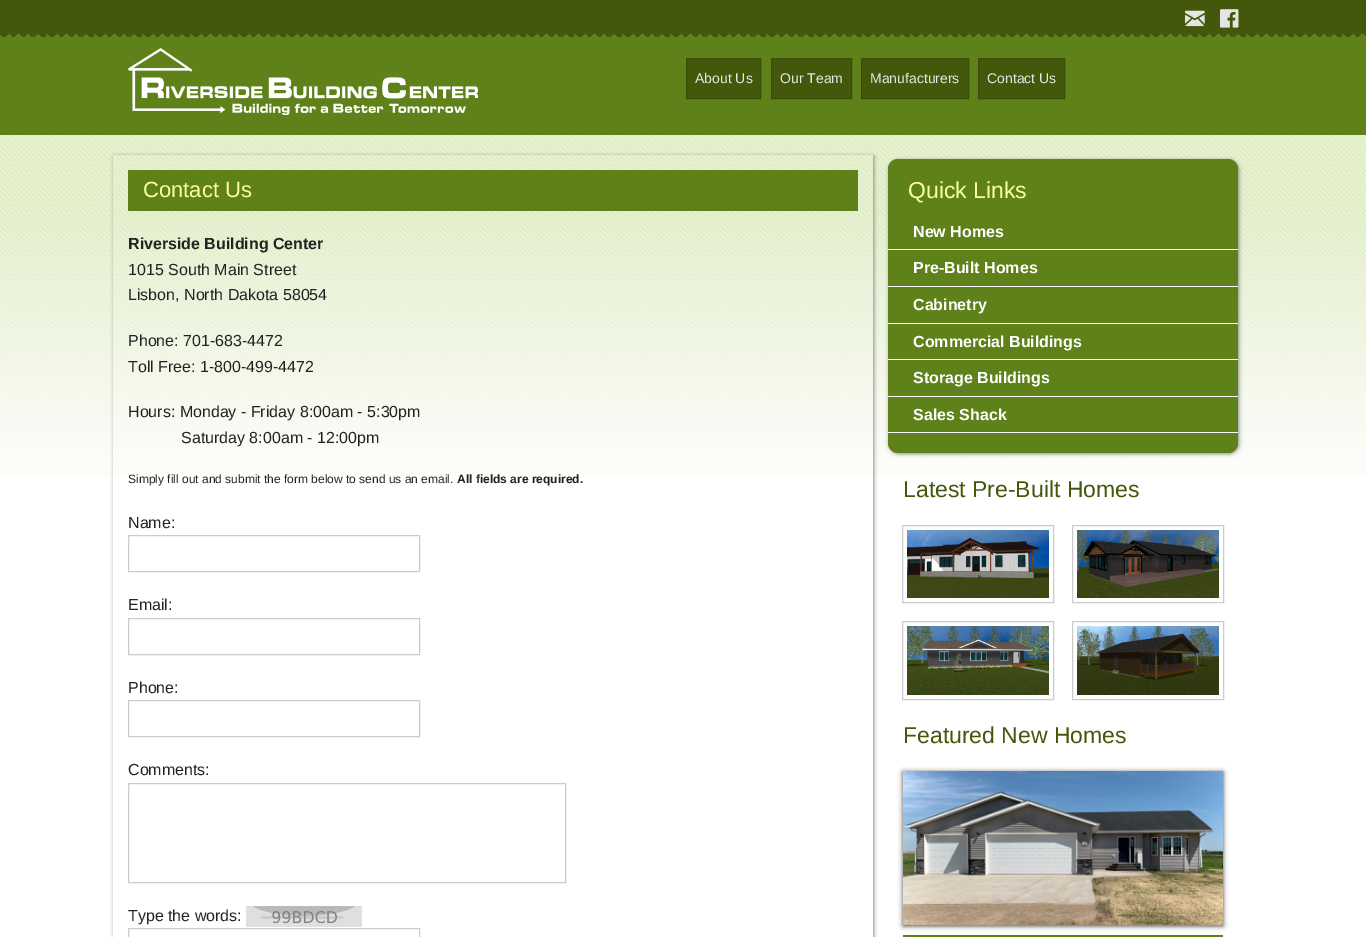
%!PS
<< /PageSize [1366 937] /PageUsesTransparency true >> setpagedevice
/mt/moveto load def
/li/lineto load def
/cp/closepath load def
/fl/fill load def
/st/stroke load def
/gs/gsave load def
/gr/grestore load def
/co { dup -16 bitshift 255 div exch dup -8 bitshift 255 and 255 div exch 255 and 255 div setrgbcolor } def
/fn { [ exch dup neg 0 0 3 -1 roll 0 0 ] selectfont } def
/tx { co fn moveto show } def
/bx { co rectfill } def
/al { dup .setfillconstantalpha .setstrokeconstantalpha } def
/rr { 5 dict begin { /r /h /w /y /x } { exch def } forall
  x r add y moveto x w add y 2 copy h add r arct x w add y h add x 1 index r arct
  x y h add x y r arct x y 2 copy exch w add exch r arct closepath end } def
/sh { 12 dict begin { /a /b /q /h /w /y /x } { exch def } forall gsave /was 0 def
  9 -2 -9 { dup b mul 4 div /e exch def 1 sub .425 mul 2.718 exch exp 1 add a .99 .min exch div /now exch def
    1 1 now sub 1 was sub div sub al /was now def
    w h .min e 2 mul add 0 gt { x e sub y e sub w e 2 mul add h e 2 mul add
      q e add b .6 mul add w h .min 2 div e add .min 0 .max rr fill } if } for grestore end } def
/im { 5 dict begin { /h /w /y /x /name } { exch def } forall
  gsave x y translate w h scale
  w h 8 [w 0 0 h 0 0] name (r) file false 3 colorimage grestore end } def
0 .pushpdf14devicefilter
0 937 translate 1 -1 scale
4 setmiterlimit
0 0 1366 937 16#FFFFFF bx
(media/1.raw) 0 135 1366 341 im
0 34 1366 101 16#5E8119 bx
(media/2.raw) 0 0 1366 37 im
(media/3.raw) 1185 10 20 17 im
(media/4.raw) 1220 9 19 19 im
(media/5.raw) 128 48 350 67 im
16#43580B co
686.5 58.5 mt 760.5 58.5 li 760.5 98.5 li 686.5 98.5 li cp gs fl gr
16#3B4C09 co
st
16#43580B co
771.5 58.5 mt 851.5 58.5 li 851.5 98.5 li 771.5 98.5 li cp gs fl gr
16#3B4C09 co
st
16#43580B co
861.5 58.5 mt 968.5 58.5 li 968.5 98.5 li 861.5 98.5 li cp gs fl gr
16#3B4C09 co
st
16#43580B co
978.5 58.5 mt 1064.5 58.5 li 1064.5 98.5 li 978.5 98.5 li cp gs fl gr
16#3B4C09 co
st
gs
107 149 mt 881 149 li 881 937 li 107 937 li cp 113 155 mt 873 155 li 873 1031 li 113 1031 li cp eoclip newpath
16#888888 co
114 156 760 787 0 2 1 sh
gr
128 170 730 41 16#5E8119 bx
16#CCCCCC co
128.5 535.5 291 36 rectstroke
128.5 618.5 291 36 rectstroke
128.5 700.5 291 36 rectstroke
128.5 783.5 437 99 rectstroke
(media/6.raw) 246 906 116 21 im
128.5 928.5 291 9 rectstroke
16#888888 co
889 160 350 294 10 2 1 sh
16#5E8119 co
888 159 350 294 10 rr fl
888 249 350 1 16#FFFFFF bx
888 286 350 1 16#FFFFFF bx
888 323 350 1 16#FFFFFF bx
888 359 350 1 16#FFFFFF bx
888 396 350 1 16#FFFFFF bx
888 432 350 1 16#FFFFFF bx
16#CCCCCC co
902.5 525.5 151 77 rectstroke
(media/7.raw) 907 530 142 68 im
1072.5 525.5 151 77 rectstroke
(media/8.raw) 1077 530 142 68 im
902.5 621.5 151 78 rectstroke
(media/9.raw) 907 626 142 69 im
1072.5 621.5 151 78 rectstroke
(media/10.raw) 1077 626 142 69 im
16#4A4A4A co
903 772 320 154 0 2.5 1 sh
(media/11.raw) 903 771 320 154 im
903 935 320 2 16#5E8119 bx
(About Us) 695 83 /LiberationSans-Regular 14 16#E5E5E5 tx
(Our Team) 780 83 /LiberationSans-Regular 14 16#E5E5E5 tx
(Manufacturers) 870 83 /LiberationSans-Regular 14 16#E5E5E5 tx
(Contact Us) 987 83 /LiberationSans-Regular 14 16#E5E5E5 tx
(Contact Us) 143 197 /LiberationSans-Regular 22 16#FFFF99 tx
(Riverside Building Center) 128 249 /LiberationSans-Bold 16 16#222222 tx
(1015 South Main Street) 128 275 /LiberationSans-Regular 16 16#222222 tx
(Lisbon, North Dakota 58054) 128 300 /LiberationSans-Regular 16 16#222222 tx
(Phone: 701-683-4472) 128 346 /LiberationSans-Regular 16 16#222222 tx
(Toll Free: 1-800-499-4472) 128 372 /LiberationSans-Regular 16 16#222222 tx
(Hours: Monday - Friday 8:00am - 5:30pm) 128 417 /LiberationSans-Regular 16 16#222222 tx
(Saturday 8:00am - 12:00pm) 181 443 /LiberationSans-Regular 16 16#222222 tx
(Simply fill out and submit the form below to send us an email.) 128 483 /LiberationSans-Regular 12 16#222222 tx
(All fields are required.) 457 483 /LiberationSans-Bold 12 16#222222 tx
(Name:) 128 528 /LiberationSans-Regular 16 16#222222 tx
(Email:) 128 610 /LiberationSans-Regular 16 16#222222 tx
(Phone:) 128 693 /LiberationSans-Regular 16 16#222222 tx
(Comments:) 128 775 /LiberationSans-Regular 16 16#222222 tx
(Type the words:) 128 921 /LiberationSans-Regular 16 16#222222 tx
(Quick Links) 908 198 /LiberationSans-Regular 23 16#FFFF99 tx
(New Homes) 913 237 /LiberationSans-Bold 16 16#FFFFFF tx
(Pre-Built Homes) 913 273 /LiberationSans-Bold 16 16#FFFFFF tx
(Cabinetry) 913 310 /LiberationSans-Bold 16 16#FFFFFF tx
(Commercial Buildings) 913 347 /LiberationSans-Bold 16 16#FFFFFF tx
(Storage Buildings) 913 383 /LiberationSans-Bold 16 16#FFFFFF tx
(Sales Shack) 913 420 /LiberationSans-Bold 16 16#FFFFFF tx
(Latest Pre-Built Homes) 903 497 /LiberationSans-Regular 23 16#43580B tx
(Featured New Homes) 903 743 /LiberationSans-Regular 23 16#43580B tx
.poppdf14devicefilter showpage
